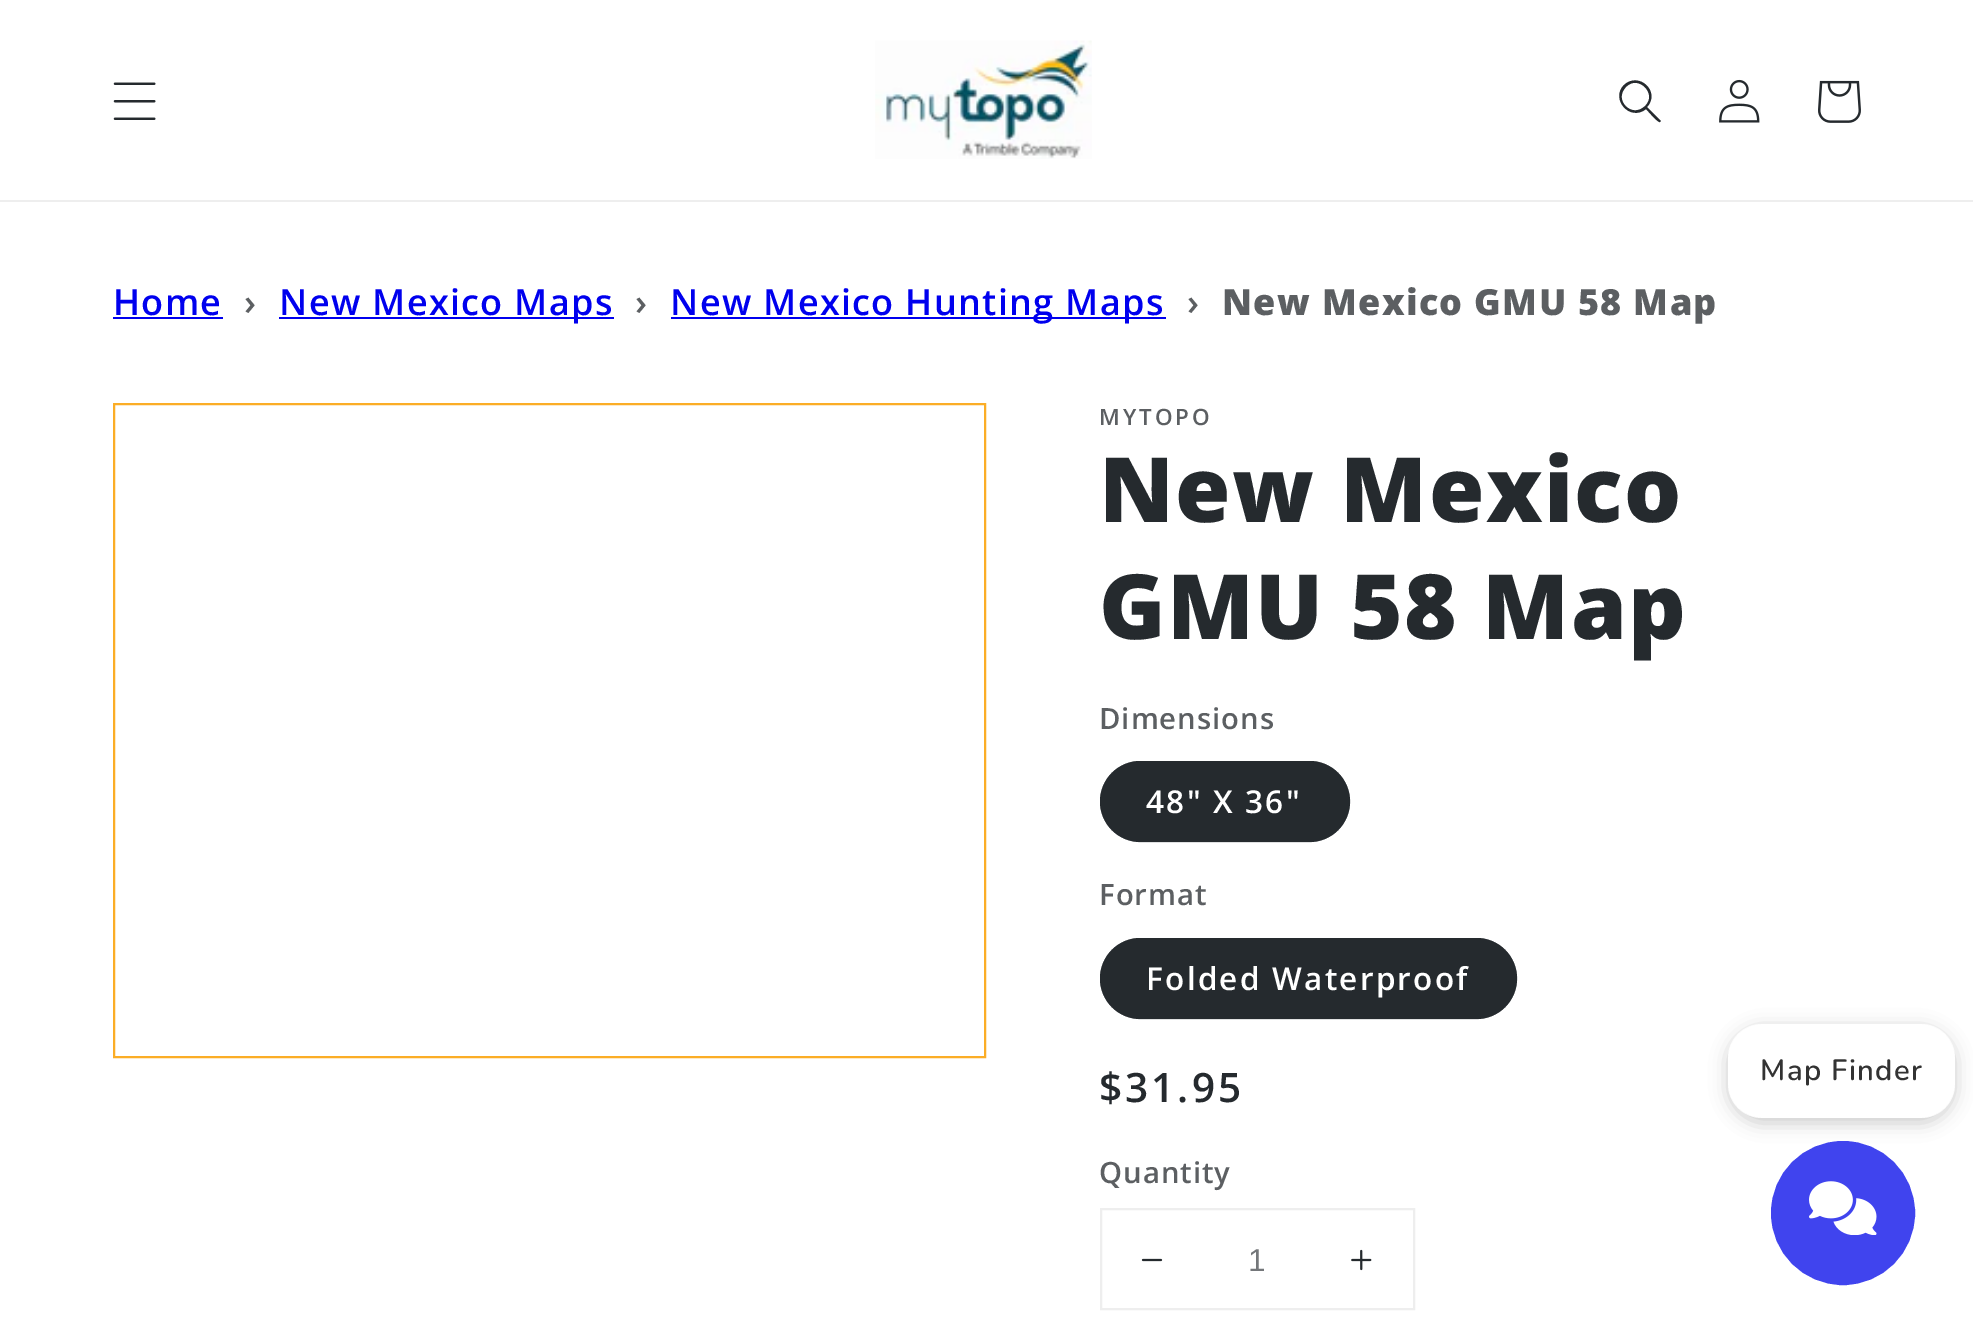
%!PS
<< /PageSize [1973 1317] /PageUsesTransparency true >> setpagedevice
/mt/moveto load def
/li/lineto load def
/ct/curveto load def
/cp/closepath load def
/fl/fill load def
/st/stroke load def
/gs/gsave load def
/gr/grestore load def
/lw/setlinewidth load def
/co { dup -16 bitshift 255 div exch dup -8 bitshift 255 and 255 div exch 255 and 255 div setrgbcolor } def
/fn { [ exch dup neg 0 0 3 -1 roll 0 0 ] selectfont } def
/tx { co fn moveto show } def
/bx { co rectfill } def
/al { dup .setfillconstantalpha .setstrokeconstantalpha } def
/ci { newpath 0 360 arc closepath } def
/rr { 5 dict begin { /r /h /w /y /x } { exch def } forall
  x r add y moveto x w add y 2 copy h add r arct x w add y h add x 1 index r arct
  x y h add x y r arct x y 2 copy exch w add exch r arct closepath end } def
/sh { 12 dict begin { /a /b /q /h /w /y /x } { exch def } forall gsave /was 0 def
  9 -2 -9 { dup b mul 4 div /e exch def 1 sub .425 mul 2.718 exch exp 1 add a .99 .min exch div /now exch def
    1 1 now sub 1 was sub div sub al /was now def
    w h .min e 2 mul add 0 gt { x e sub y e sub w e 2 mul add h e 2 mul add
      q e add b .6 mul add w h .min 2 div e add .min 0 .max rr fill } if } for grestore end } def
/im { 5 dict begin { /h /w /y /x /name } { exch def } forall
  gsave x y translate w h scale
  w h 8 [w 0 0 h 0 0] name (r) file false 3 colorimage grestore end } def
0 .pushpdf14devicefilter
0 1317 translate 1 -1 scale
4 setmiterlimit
0 0 1973 1317 16#FFFFFF bx
0 200 1973 2 16#EEEEEE bx
(media/1.raw) 113 82 43 38 im
(media/2.raw) 875 40 217 119 im
16#252A2E co
1645 106 mt 1632 119 1613 100 1626 87 ct 1638 74 1658 94 1645 106 ct cp 1646 109 mt 1630 122 1610 99 1624 85 ct 1639 71 1661 92 1647 107 ct 1661 121 li 1660 122 li 1658 123 1648 111 1646 109 ct cp eofill
(media/3.raw) 1719 79 41 44 im
(media/4.raw) 1818 80 43 43 im
113 317 110 2 16#0000EE bx
279 317 335 2 16#0000EE bx
671 317 495 2 16#0000EE bx
16#FBAD26 co
2 lw
114 404 871 653 rectstroke
16#252A2E co
1100 761 250 81 40.5 rr fl
0.55 al
1101 762 248 79 39.5 rr st
1 al
1100 938 417 81 40.5 rr fl
0.55 al
1101 939 415 79 39.5 rr st
1 al
16#EEEEEE co
1101 1209 313 100 rectstroke
(media/5.raw) 1141 1258 22 4 im
(media/6.raw) 1351 1249 21 22 im
gs
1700 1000 mt 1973 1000 li 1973 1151 li 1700 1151 li cp 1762 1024 mt 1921 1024 li 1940 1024 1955 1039 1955 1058 ct 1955 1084 li 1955 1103 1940 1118 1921 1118 ct 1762 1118 li 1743 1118 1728 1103 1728 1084 ct 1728 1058 li 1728 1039 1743 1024 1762 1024 ct cp eoclip newpath
16#000000 co
1728 1028 227 95 34 9 .2 sh
gr
0.9 al
16#FFFFFF co
1728 1024 227 94 34 rr fl
1 al
16#4044EE co
1843 1213 67.5 ci gs fl gr
9 lw
st
(media/7.raw) 1809 1181 68 54 im
/OpenSans-SemiBold 36 fn
16#0000EE co
113 315 mt 1.35 0 (Home) ashow
16#5C5F62 co
244 315 mt 1.35 0 (›) ashow
16#0000EE co
279 315 mt 1.35 0 (New Mexico Maps) ashow
16#5C5F62 co
635 315 mt 1.35 0 (›) ashow
16#0000EE co
670 315 mt 1.35 0 (New Mexico Hunting Maps) ashow
16#5C5F62 co
1187 315 mt 1.35 0 (›) ashow
/OpenSans-ExtraBold 36 fn
1222 315 mt 1.35 0 (New Mexico GMU 58 Map) ashow
/OpenSans-SemiBold 22.5 fn
1099 425 mt 3 0 (MYTOPO) ashow
/OpenSans-ExtraBold 90 fn
16#252A2E co
1099 522 mt 1.35 0 (New Mexico) ashow
1099 639 mt 1.35 0 (GMU 58 Map) ashow
/OpenSans-SemiBold 29.25 fn
16#5C5F62 co
1099 729 mt 1 0 (Dimensions) ashow
/OpenSans-SemiBold 31.5 fn
16#FFFFFF co
1146 813 mt 2.25 0 (48" X 36") ashow
/OpenSans-SemiBold 29.25 fn
16#5C5F62 co
1099 905 mt 1 0 (Format) ashow
/OpenSans-SemiBold 31.5 fn
16#FFFFFF co
1146 990 mt 2.25 0 (Folded Waterproof) ashow
/OpenSans-SemiBold 40.5 fn
16#252A2E co
1099 1102 mt 3 0 ($31.95) ashow
/OpenSans-SemiBold 29.25 fn
16#5C5F62 co
1099 1183 mt 1 0 (Quantity) ashow
(1) 1248 1271 /LiberationSans-Regular 31.5 16#74777A tx
/Nunito-SemiBold 29.25 fn
16#333333 co
1760 1080 mt 1.35 0 (Map Finder) ashow
.poppdf14devicefilter showpage
